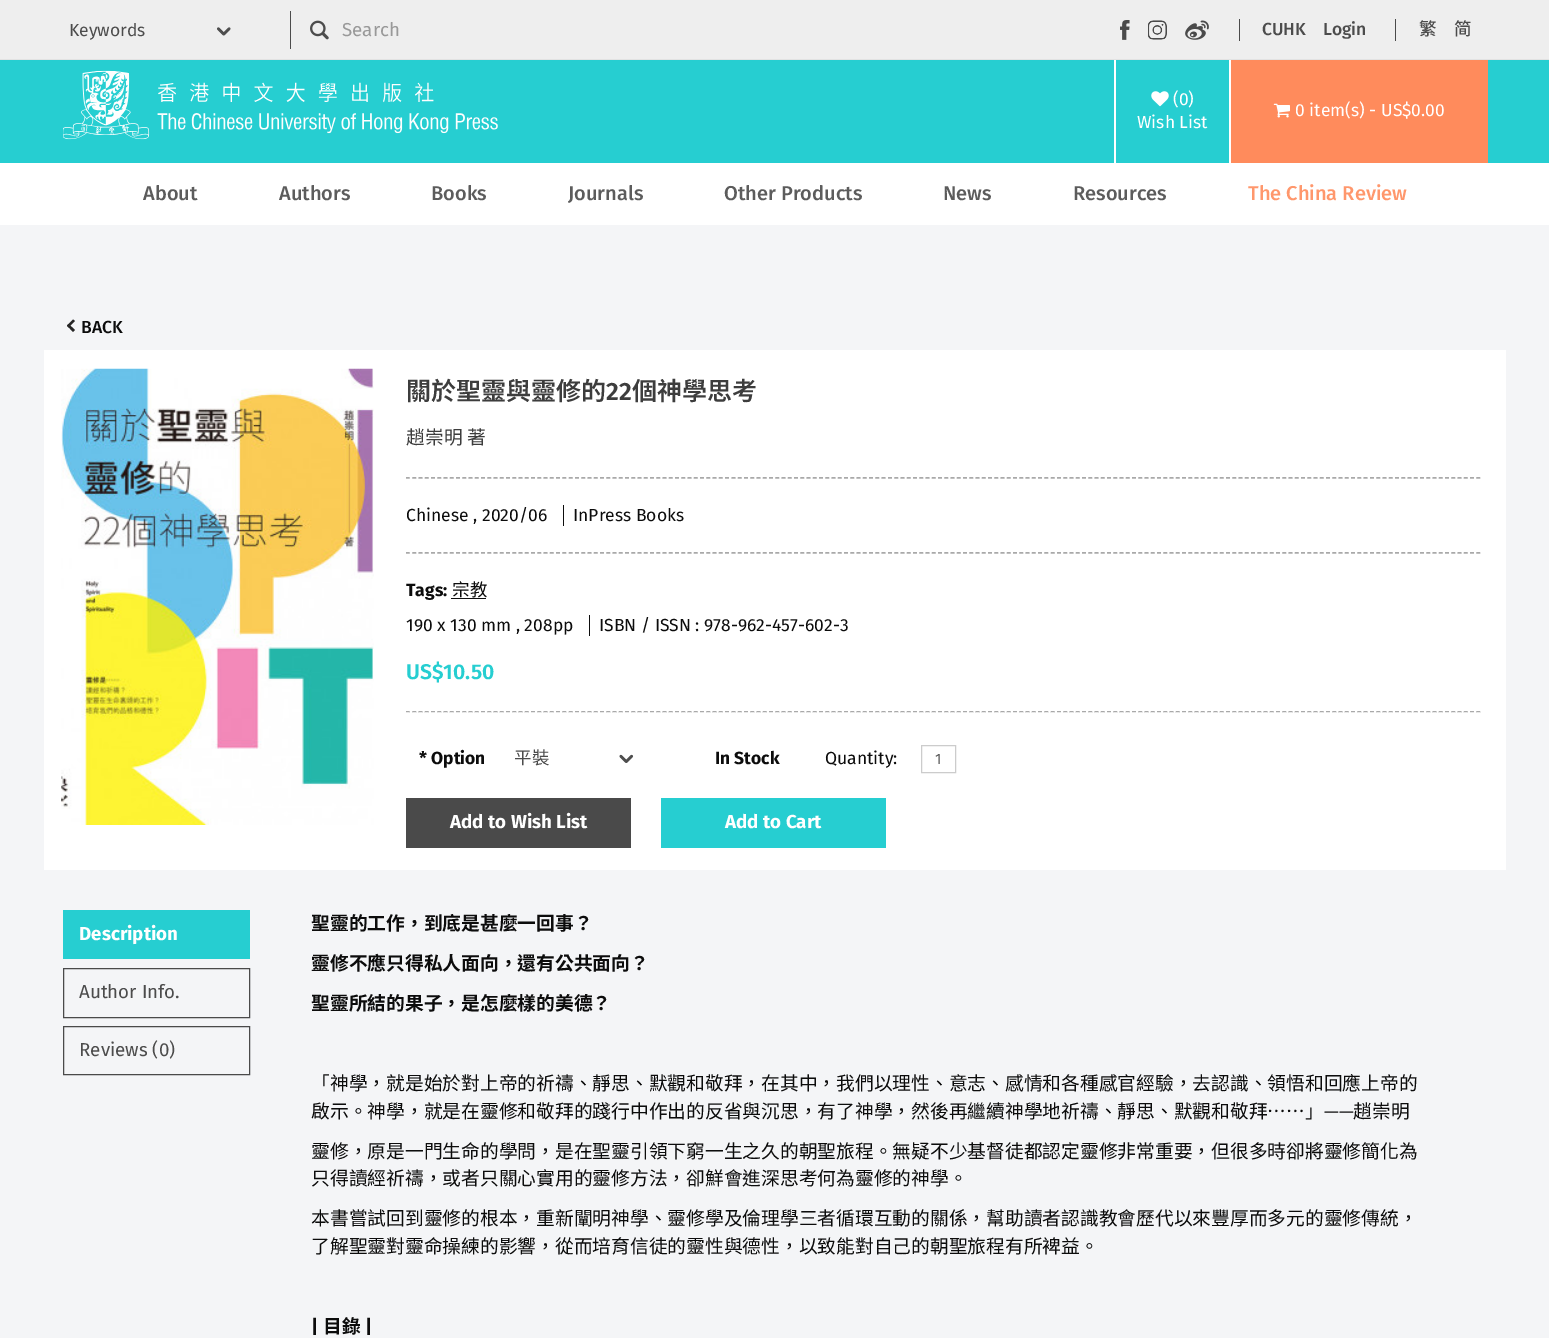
%!PS
<< /PageSize [1549 1338] >> setpagedevice
/mt/moveto load def
/li/lineto load def
/cp/closepath load def
/fl/fill load def
/st/stroke load def
/lw/setlinewidth load def
/co { dup -16 bitshift 255 div exch dup -8 bitshift 255 and 255 div exch 255 and 255 div setrgbcolor } def
/fn { [ exch dup neg 0 0 3 -1 roll 0 0 ] selectfont } def
/tx { co fn moveto show } def
/bx { co rectfill } def
/im { 5 dict begin { /h /w /y /x /name } { exch def } forall
  gsave x y translate w h scale
  w h 8 [w 0 0 h 0 0] name (r) file false 3 colorimage grestore end } def
0 1338 translate 1 -1 scale
4 setmiterlimit
0 0 1549 1338 16#F4F5F7 bx
0 0 1549 59 16#EEEEEE bx
0 59 1549 1 16#E2E2E2 bx
290 11 1 38 16#4C4C4C bx
(media/1.raw) 217 27 14 9 im
(media/2.raw) 310 20 19 20 im
1239 19 1 22 16#4A4A4A bx
(media/3.raw) 1120 20 10 20 im
(media/4.raw) 1148 20 19 20 im
(media/5.raw) 1185 20 24 20 im
1395 19 1 22 16#4A4A4A bx
0 60 1549 103 16#26CED1 bx
1114 60 117 103 16#FFFFFF bx
(media/6.raw) 63 70 435 70 im
1116 60 113 103 16#26CED1 bx
(media/7.raw) 1151 91 18 16 im
1231 60 257 103 16#FF8B5C bx
(media/8.raw) 1273 103 17 15 im
0 163 1549 62 16#FFFFFF bx
16#262626 co
75 330 mt 73 332 li 67 325.5 li 68.5 324 li cp fl
75 321 mt 68.5 327.5 li 67 325.5 li 73 319.5 li cp fl
44 350 1462 520 16#FFFFFF bx
(media/9.raw) 61 368 313 457 im
16#8B8B8B co
1.2 lw
[3.75 2.51] 0 setdash
406 478 mt 1481 478 li st
16#FFFFFF co
406 479.5 mt 1481 479.5 li st
563 505 1 21 16#0D0D0D bx
16#8B8B8B co
406 553 mt 1481 553 li st
16#FFFFFF co
406 554.5 mt 1481 554.5 li st
451 598 35 1 16#0D0D0D bx
589 615 1 21 16#0D0D0D bx
16#8B8B8B co
406 712 mt 1481 712 li st
16#FFFFFF co
406 713 mt 1481 713 li st
(media/10.raw) 619 754 15 9 im
16#CCCCCC co
1 lw
[] 0 setdash
921.5 745.5 34 27 rectstroke
406 798 225 50 16#4A4A4A bx
661 798 225 50 16#26CED1 bx
63 910 187 49 16#26CED1 bx
16#4A4A4A co
63.5 968.5 186 49 rectstroke
63.5 1026.5 186 48 rectstroke
(Keywords) 69 36 /FiraSans-Regular 17.5 16#4C4C4C tx
(Search) 342 36 /FiraSans-Regular 18.75 16#999999 tx
(CUHK) 1262 35 /FiraSans-Medium 17.5 16#4C4C4C tx
(Login) 1323 35 /FiraSans-Medium 17.5 16#4C4C4C tx
(繁) 1419 35 /NotoSansTC-Medium 17.5 16#4C4C4C tx
(简) 1454 35 /NotoSansSC-Medium 17.5 16#4C4C4C tx
(\(0\)) 1173 105 /FiraSans-Regular 17.5 16#FFFFFF tx
(Wish List) 1137 128 /FiraSans-Regular 17.5 16#FFFFFF tx
(0 item\(s\) - US$0.00) 1295 116 /FiraSans-Regular 17.5 16#FFFFFF tx
(About) 143 200 /FiraSans-Medium 20 16#5C5C5C tx
(Authors) 279 200 /FiraSans-Medium 20 16#5C5C5C tx
(Books) 431 200 /FiraSans-Medium 20 16#5C5C5C tx
(Journals) 568 200 /FiraSans-Medium 20 16#5C5C5C tx
(Other Products) 724 200 /FiraSans-Medium 20 16#5C5C5C tx
(News) 943 200 /FiraSans-Medium 20 16#5C5C5C tx
(Resources) 1073 200 /FiraSans-Medium 20 16#5C5C5C tx
(The China Review) 1248 200 /FiraSans-Medium 20 16#FF976C tx
(BACK) 81 333 /FiraSans-Medium 17.5 16#0C0C0C tx
(關於聖靈與靈修的) 406 400 /NotoSansTC-SemiBold 25 16#3D3D3D tx
(22) 606 400 /FiraSans-SemiBold 25 16#3D3D3D tx
(個神學思考) 632 400 /NotoSansTC-SemiBold 25 16#3D3D3D tx
/NotoSansTC-Regular 18.75 fn
406 444 mt 1 0 32 (趙崇明 著) widthshow
(Chinese , 2020/06) 406 521 /FiraSans-Regular 17.5 16#0C0C0C tx
(InPress Books) 573 521 /FiraSans-Regular 17.5 16#0C0C0C tx
(Tags:) 406 596 /FiraSans-Bold 17.5 16#0C0C0C tx
(宗教) 452 596 /NotoSansTC-Regular 17.5 16#0C0C0C tx
(190 x 130 mm , 208pp) 406 631 /FiraSans-Regular 17.5 16#0C0C0C tx
(ISBN / ISSN : 978-962-457-602-3) 599 631 /FiraSans-Regular 17.5 16#0C0C0C tx
(US$10.50) 406 679 /FiraSans-SemiBold 21.25 16#26CED1 tx
(* Option) 419 764 /FiraSans-Bold 17.5 16#0C0C0C tx
(平裝) 514 764 /NotoSansTC-Regular 17.5 16#4C4C4C tx
(In Stock) 715 764 /FiraSans-Bold 17.5 16#0C0C0C tx
(Quantity:) 825 764 /FiraSans-Regular 17.5 16#0C0C0C tx
(1) 935 764 /FiraSans-Regular 15 16#555555 tx
(Add to Wish List) 450 828 /FiraSans-Bold 18.75 16#FFFFFF tx
(Add to Cart) 725 828 /FiraSans-Bold 18.75 16#FFFFFF tx
(Description) 79 940 /FiraSans-Bold 18.75 16#FFFFFF tx
(Author Info.) 79 998 /FiraSans-Regular 18.75 16#4C4C4C tx
(Reviews \(0\)) 79 1056 /FiraSans-Regular 18.75 16#4C4C4C tx
(聖靈的工作，到底是甚麼一回事？) 311 930 /NotoSansTC-Bold 18.75 16#0C0C0C tx
(靈修不應只得私人面向，還有公共面向？) 311 970 /NotoSansTC-Bold 18.75 16#0C0C0C tx
(聖靈所結的果子，是怎麼樣的美德？) 311 1010 /NotoSansTC-Bold 18.75 16#0C0C0C tx
(「神學，就是始於對上帝的祈禱、靜思、默觀和敬拜，在其中，我們以理性、意志、感情和各種感官經驗，去認識、領悟和回應上帝的) 311 1090 /NotoSansTC-Regular 18.75 16#0C0C0C tx
(啟示。神學，就是在靈修和敬拜的踐行中作出的反省與沉思，有了神學，然後再繼續神學地祈禱、靜思、默觀和敬拜⋯⋯」) 311 1118 /NotoSansTC-Regular 18.75 16#0C0C0C tx
(——) 1324 1118 /FiraSans-Regular 18.75 16#0C0C0C tx
(趙崇明) 1353 1118 /NotoSansTC-Regular 18.75 16#0C0C0C tx
(靈修，原是一門生命的學問，是在聖靈引領下窮一生之久的朝聖旅程。無疑不少基督徒都認定靈修非常重要，但很多時卻將靈修簡化為) 311 1158 /NotoSansTC-Regular 18.75 16#0C0C0C tx
(只得讀經祈禱，或者只關心實用的靈修方法，卻鮮會進深思考何為靈修的神學。) 311 1185 /NotoSansTC-Regular 18.75 16#0C0C0C tx
(本書嘗試回到靈修的根本，重新闡明神學、靈修學及倫理學三者循環互動的關係，幫助讀者認識教會歷代以來豐厚而多元的靈修傳統，) 311 1225 /NotoSansTC-Regular 18.75 16#0C0C0C tx
(了解聖靈對靈命操練的影響，從而培育信徒的靈性與德性，以致能對自己的朝聖旅程有所裨益。) 311 1253 /NotoSansTC-Regular 18.75 16#0C0C0C tx
(|) 311 1333 /FiraSans-Bold 18.75 16#0C0C0C tx
(目錄) 323 1333 /NotoSansTC-Bold 18.75 16#0C0C0C tx
(|) 365 1333 /FiraSans-Bold 18.75 16#0C0C0C tx
showpage
